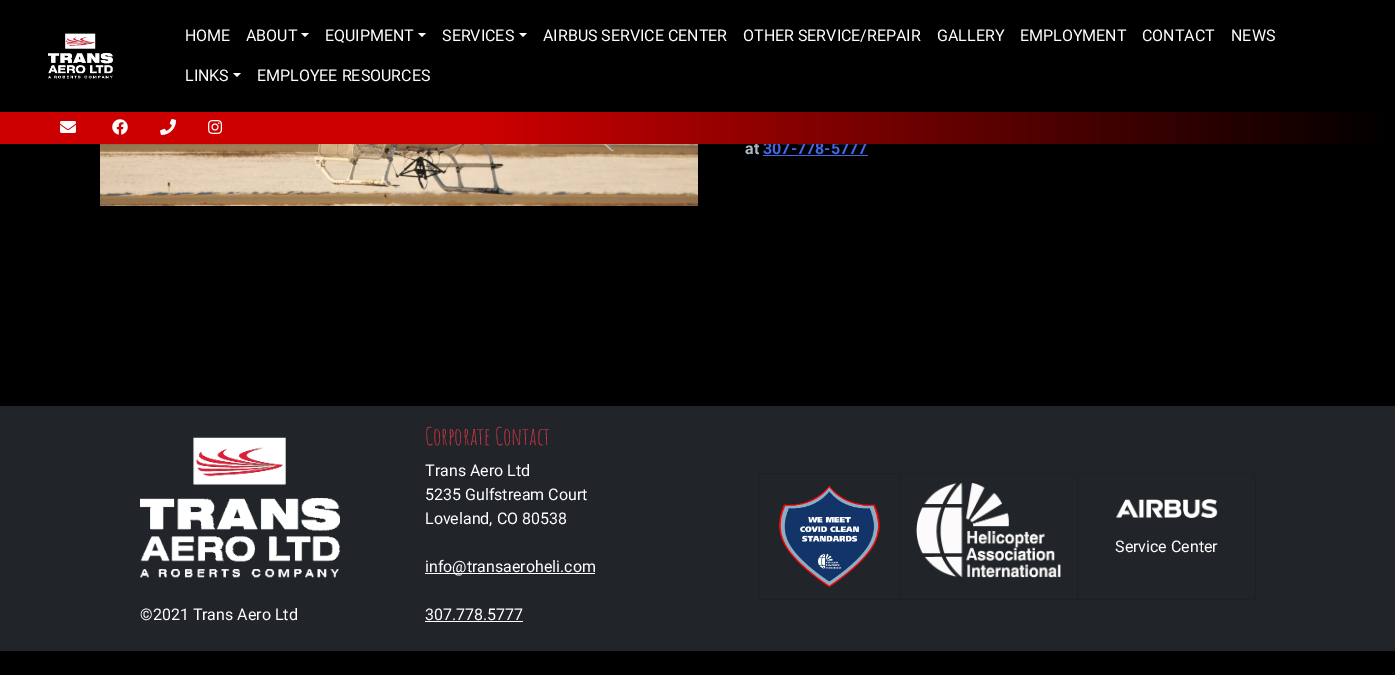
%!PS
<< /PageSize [1395 675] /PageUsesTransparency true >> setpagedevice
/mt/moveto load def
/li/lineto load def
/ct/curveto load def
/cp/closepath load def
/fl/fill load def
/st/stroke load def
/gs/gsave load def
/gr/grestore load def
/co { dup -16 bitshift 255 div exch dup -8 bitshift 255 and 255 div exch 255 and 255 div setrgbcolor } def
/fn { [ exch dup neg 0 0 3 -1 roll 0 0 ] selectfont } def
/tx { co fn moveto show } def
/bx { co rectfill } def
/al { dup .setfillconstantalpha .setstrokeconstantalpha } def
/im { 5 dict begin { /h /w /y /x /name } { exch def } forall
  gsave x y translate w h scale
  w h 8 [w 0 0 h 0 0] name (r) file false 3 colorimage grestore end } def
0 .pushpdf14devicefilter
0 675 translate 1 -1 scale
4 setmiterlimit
0 0 1395 675 16#000000 bx
(media/1.raw) 48 33 65 46 im
16#FFFFFF co
301 33 mt 309 33 li 305 37 li cp fl
418 33 mt 426 33 li 422 37 li cp fl
519 33 mt 527 33 li 523 37 li cp fl
233 73 mt 241 73 li 237 77 li cp fl
(media/6.raw) 100 144 598 62 im
763 155 105 1 16#4169E1 bx
0 406 1395 245 16#212529 bx
425 573 170 1 16#FFFFFF bx
425 621 98 1 16#FFFFFF bx
16#1D2024 co
762 473.5 mt 899.5 473.5 li 899.5 599.5 li 762 599.5 li 760 599.5 758.5 598 758.5 596 ct 758.5 477 li 758.5 475 760 473.5 762 473.5 ct cp st
(media/7.raw) 778 485 102 103 im
900 473 mt 1078 473 li 1077 474 li 900 474 li cp fl
1078 473 mt 1078 600 li 1077 599 li 1077 474 li cp fl
0.12 al
16#000000 co
1078 600 mt 900 600 li 900 599 li 1077 599 li cp fl
1 al
(media/8.raw) 916 483 145 95 im
16#1D2024 co
1078 473 mt 1252 473 li 1254 473 1256 475 1256 477 ct 1256 596 li 1256 598 1254 600 1252 600 ct 1078 600 li cp 1078 474 mt 1252 474 li 1254 474 1255 475 1255 477 ct 1255 596 li 1255 598 1254 599 1252 599 ct 1078 599 li cp eofill
(media/9.raw) 1116 499 102 19 im
(media/10.raw) 140 437 200 141 im
(HOME) 185 41 /Roboto-Regular 16 16#FFFFFF tx
(ABOUT) 246 41 /Roboto-Regular 16 16#FFFFFF tx
(EQUIPMENT) 325 41 /Roboto-Regular 16 16#FFFFFF tx
(SERVICES) 442 41 /Roboto-Regular 16 16#FFFFFF tx
(AIRBUS SERVICE CENTER) 543 41 /Roboto-Regular 16 16#FFFFFF tx
(OTHER SERVICE/REPAIR) 743 41 /Roboto-Regular 16 16#FFFFFF tx
(GALLERY) 937 41 /Roboto-Regular 16 16#FFFFFF tx
(EMPLOYMENT) 1020 41 /Roboto-Regular 16 16#FFFFFF tx
(CONTACT) 1142 41 /Roboto-Regular 16 16#FFFFFF tx
(NEWS) 1231 41 /Roboto-Regular 16 16#FFFFFF tx
(LINKS) 185 81 /Roboto-Regular 16 16#FFFFFF tx
(EMPLOYEE RESOURCES) 257 81 /Roboto-Regular 16 16#FFFFFF tx
(at) 745 154 /Roboto-Bold 16 16#ABB8C3 tx
(307-778-5777) 763 154 /Roboto-Bold 16 16#4169E1 tx
gs 0 112 mt 1384 112 li 1384 144 li 0 144 li cp clip newpath
<< /ShadingType 2 /ColorSpace /DeviceRGB /Coords [0 128 1395 128] /Extend [true true] /Function << /FunctionType 3 /Domain [0 1] /Functions [<< /FunctionType 2 /Domain [0 1] /C0 [.8 0 .004] /C1 [.8 0 .004] /N 1 >> << /FunctionType 2 /Domain [0 1] /C0 [.8 0 .004] /C1 [0 0 0] /N 1 >>] /Bounds [.35] /Encode [0 1 0 1] >> >> shfill gr
(media/5.raw) 208 120 15 14 im
(media/4.raw) 160 119 16 16 im
(media/3.raw) 112 119 16 16 im
(media/2.raw) 60 121 16 12 im
(Corporate Contact) 425 445 /AmaticSC-Regular 24 16#DC3545 tx
(Trans Aero Ltd) 425 476 /Roboto-Regular 16 16#FFFFFF tx
(5235 Gulfstream Court) 425 500 /Roboto-Regular 16 16#FFFFFF tx
(Loveland, CO 80538) 425 524 /Roboto-Regular 16 16#FFFFFF tx
(info@transaeroheli.com) 425 572 /Roboto-Regular 16 16#FFFFFF tx
(307.778.5777) 425 620 /Roboto-Regular 16 16#FFFFFF tx
(Service Center) 1115 552 /Roboto-Regular 16 16#FFFFFF tx
(©2021 Trans Aero Ltd) 140 620 /Roboto-Regular 16 16#FFFFFF tx
.poppdf14devicefilter showpage
